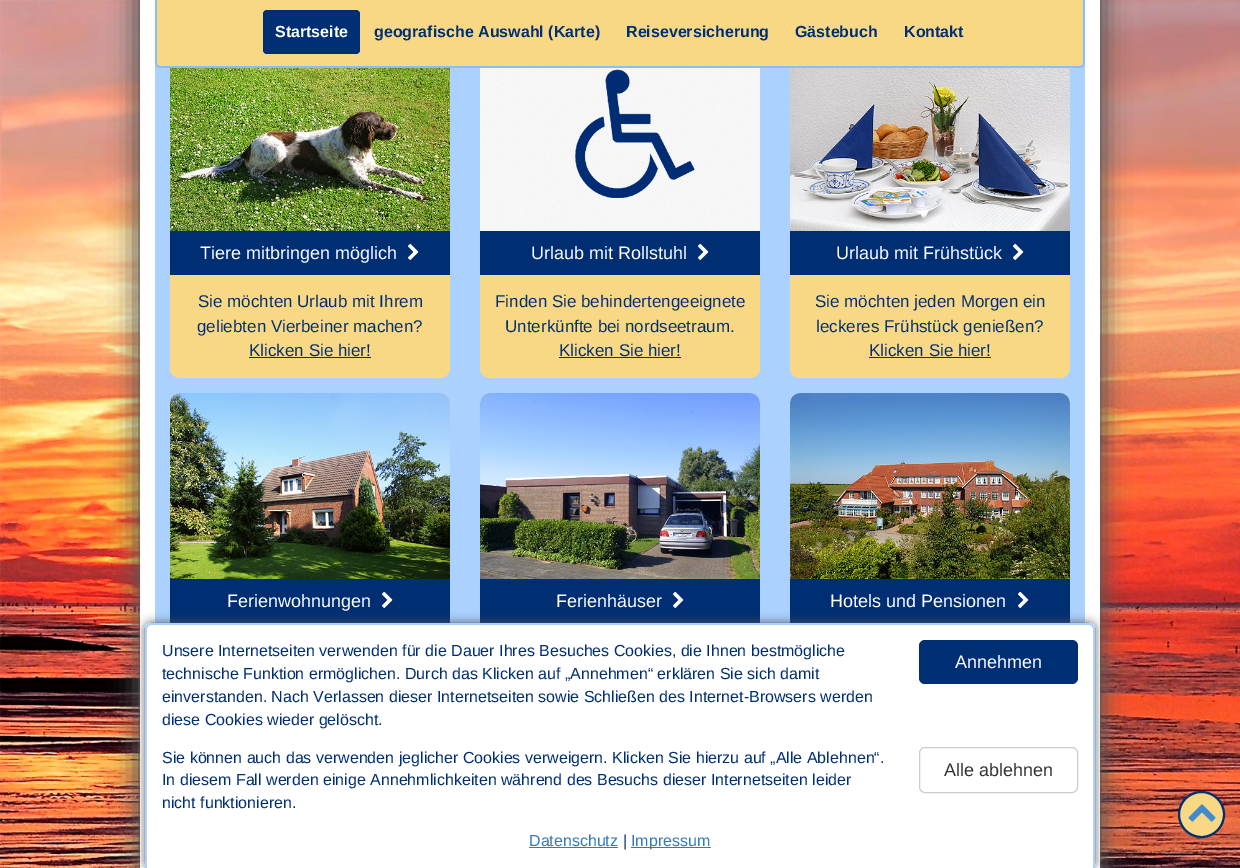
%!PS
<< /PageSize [1240 868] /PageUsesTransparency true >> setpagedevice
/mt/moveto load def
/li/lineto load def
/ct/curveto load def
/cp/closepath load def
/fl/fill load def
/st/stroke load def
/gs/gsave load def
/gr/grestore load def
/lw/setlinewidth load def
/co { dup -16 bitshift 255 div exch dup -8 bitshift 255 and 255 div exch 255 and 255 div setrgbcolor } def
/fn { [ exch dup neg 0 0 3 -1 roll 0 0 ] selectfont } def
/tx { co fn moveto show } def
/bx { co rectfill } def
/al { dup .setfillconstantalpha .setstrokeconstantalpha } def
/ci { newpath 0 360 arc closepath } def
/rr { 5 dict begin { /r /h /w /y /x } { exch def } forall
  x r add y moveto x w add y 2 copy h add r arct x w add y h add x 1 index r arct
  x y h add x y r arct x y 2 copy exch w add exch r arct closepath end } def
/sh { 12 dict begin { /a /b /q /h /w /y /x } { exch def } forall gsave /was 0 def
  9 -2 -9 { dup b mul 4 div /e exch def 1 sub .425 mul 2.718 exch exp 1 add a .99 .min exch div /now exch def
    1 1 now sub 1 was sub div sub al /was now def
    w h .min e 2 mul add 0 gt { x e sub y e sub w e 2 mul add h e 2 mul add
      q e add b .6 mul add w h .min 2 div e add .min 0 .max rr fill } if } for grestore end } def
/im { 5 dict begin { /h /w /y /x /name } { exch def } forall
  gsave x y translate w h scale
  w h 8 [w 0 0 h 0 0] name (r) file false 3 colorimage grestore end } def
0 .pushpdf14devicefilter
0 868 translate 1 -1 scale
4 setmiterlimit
0 0 1240 868 16#FFFFFF bx
(media/1.raw) 0 0 1240 868 im
16#555555 co
135 -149 970 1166 111 12.5 1 sh
140 0 960 868 16#FFFFFF bx
155 63 930 560 16#ABD2FF bx
16#F9D885 co
170 45 280 333 10 rr fl
480 45 280 333 10 rr fl
790 45 280 333 10 rr fl
155 0 mt 1085 0 li 1085 63 li 1085 66 1083 68 1080 68 ct 160 68 li 157 68 155 66 155 63 ct cp fl
16#86BEFF co
155 0 mt 1085 0 li 1085 63 li 1085 66 1083 68 1080 68 ct 160 68 li 157 68 155 66 155 63 ct cp 157 0 mt 1083 0 li 1083 63 li 1083 65 1082 66 1080 66 ct 160 66 li 158 66 157 65 157 63 ct cp eofill
16#002E72 co
263 10 97 44 4 rr fl
(media/2.raw) 170 68 280 163 im
170 231 280 44 16#002E72 bx
(media/3.raw) 407 243 12 17 im
249 357 122 1 16#002E72 bx
(media/4.raw) 480 68 280 163 im
480 231 280 44 16#002E72 bx
(media/3.raw) 697 243 12 17 im
559 357 122 1 16#002E72 bx
(media/5.raw) 790 68 280 163 im
790 231 280 44 16#002E72 bx
(media/3.raw) 1012 243 12 17 im
869 357 122 1 16#002E72 bx
16#F9D885 co
170 393 280 333 10 rr fl
(media/6.raw) 170 393 280 186 im
170 579 280 44 16#002E72 bx
(media/3.raw) 381 591 12 17 im
16#F9D885 co
480 393 280 333 10 rr fl
(media/7.raw) 480 393 280 186 im
480 579 280 44 16#002E72 bx
(media/3.raw) 672 591 12 17 im
16#F9D885 co
790 393 280 333 10 rr fl
(media/8.raw) 790 393 280 186 im
790 579 280 44 16#002E72 bx
(media/3.raw) 1017 591 12 17 im
16#555555 co
145 623 950 245 6 5 1 sh
16#FFFFFF co
151 623 mt 1089 623 li 1092.5 623 1095 625.5 1095 629 ct 1095 868 li 145 868 li 145 629 li 145 625.5 147.5 623 151 623 ct cp fl
16#AAD1FF co
151 623 mt 1089 623 li 1092 623 1095 626 1095 629 ct 1095 868 li 145 868 li 145 629 li 145 626 148 623 151 623 ct cp 151 625 mt 1089 625 li 1091 625 1093 627 1093 629 ct 1093 868 li 147 868 li 147 629 li 147 627 149 625 151 625 ct cp eofill
16#002E72 co
919 640 159 44 6 rr fl
16#CCCCCC co
919.5 747.5 158 45 5.5 rr st
529 847 89 1 16#337AB7 bx
631 847 80 1 16#337AB7 bx
16#F9D885 co
1201.5 814.5 22.5 ci gs fl gr
16#002E72 co
2 lw
st
(media/9.raw) 1188 804 28 18 im
(Startseite) 275 37 /LiberationSans-Bold 16 16#FFFFFF tx
(geografische Auswahl \(Karte\)) 374 37 /LiberationSans-Bold 16 16#002E72 tx
(Reiseversicherung) 626 37 /LiberationSans-Bold 16 16#002E72 tx
(Gästebuch) 795 37 /LiberationSans-Bold 16 16#002E72 tx
(Kontakt) 904 37 /LiberationSans-Bold 16 16#002E72 tx
(Tiere mitbringen möglich) 200 259 /LiberationSans-Regular 18 16#FFFFFF tx
(Sie möchten Urlaub mit Ihrem) 198 307 /LiberationSans-Regular 17 16#002E72 tx
(geliebten Vierbeiner machen?) 197 332 /LiberationSans-Regular 17 16#002E72 tx
(Klicken Sie hier!) 249 356 /LiberationSans-Regular 17 16#002E72 tx
(Urlaub mit Rollstuhl) 531 259 /LiberationSans-Regular 18 16#FFFFFF tx
(Finden Sie behindertengeeignete) 495 307 /LiberationSans-Regular 17 16#002E72 tx
(Unterkünfte bei nordseetraum.) 505 332 /LiberationSans-Regular 17 16#002E72 tx
(Klicken Sie hier!) 559 356 /LiberationSans-Regular 17 16#002E72 tx
(Urlaub mit Frühstück) 836 259 /LiberationSans-Regular 18 16#FFFFFF tx
(Sie möchten jeden Morgen ein) 815 307 /LiberationSans-Regular 17 16#002E72 tx
(leckeres Frühstück genießen?) 816 332 /LiberationSans-Regular 17 16#002E72 tx
(Klicken Sie hier!) 869 356 /LiberationSans-Regular 17 16#002E72 tx
(Ferienwohnungen) 227 607 /LiberationSans-Regular 18 16#FFFFFF tx
(Ferienhäuser) 556 607 /LiberationSans-Regular 18 16#FFFFFF tx
(Hotels und Pensionen) 830 607 /LiberationSans-Regular 18 16#FFFFFF tx
(Unsere Internetseiten verwenden für die Dauer Ihres Besuches Cookies, die Ihnen bestmögliche) 162 656 /LiberationSans-Regular 16 16#002E72 tx
(technische Funktion ermöglichen. Durch das Klicken auf „Annehmen“ erklären Sie sich damit) 162 679 /LiberationSans-Regular 16 16#002E72 tx
(einverstanden. Nach Verlassen dieser Internetseiten sowie Schließen des Internet-Browsers werden) 162 702 /LiberationSans-Regular 16 16#002E72 tx
(diese Cookies wieder gelöscht.) 162 725 /LiberationSans-Regular 16 16#002E72 tx
(Annehmen) 955 668 /LiberationSans-Regular 18 16#FFFFFF tx
(Sie können auch das verwenden jeglicher Cookies verweigern. Klicken Sie hierzu auf „Alle Ablehnen“.) 162 763 /LiberationSans-Regular 16 16#002E72 tx
(In diesem Fall werden einige Annehmlichkeiten während des Besuchs dieser Internetseiten leider) 162 785 /LiberationSans-Regular 16 16#002E72 tx
(nicht funktionieren.) 162 808 /LiberationSans-Regular 16 16#002E72 tx
(Alle ablehnen) 944 776 /LiberationSans-Regular 18 16#333333 tx
(Datenschutz) 529 846 /LiberationSans-Regular 16 16#337AB7 tx
(|) 623 846 /LiberationSans-Regular 16 16#002E72 tx
(Impressum) 631 846 /LiberationSans-Regular 16 16#337AB7 tx
.poppdf14devicefilter showpage
